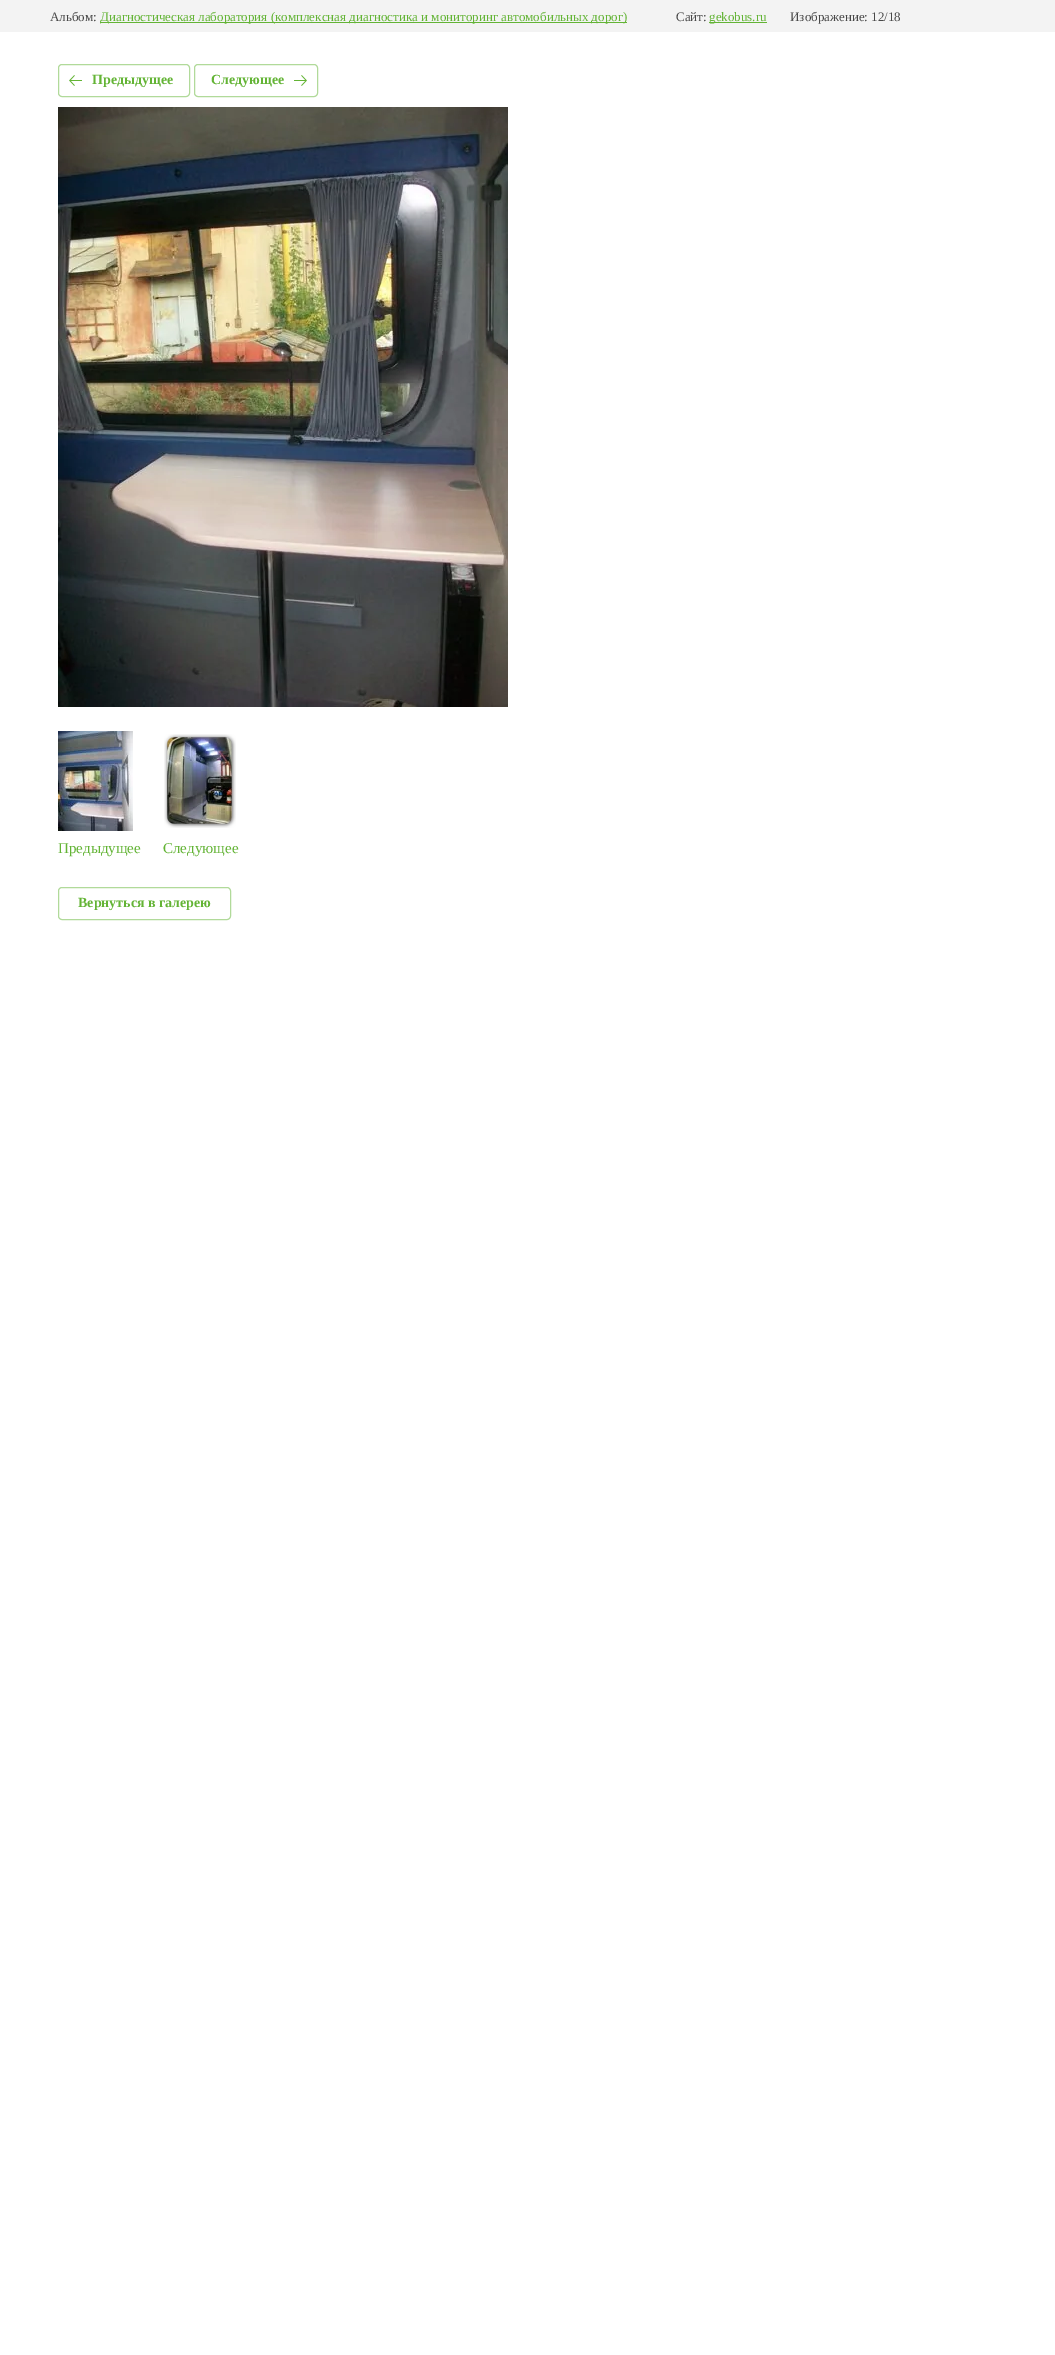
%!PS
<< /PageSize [1055 2355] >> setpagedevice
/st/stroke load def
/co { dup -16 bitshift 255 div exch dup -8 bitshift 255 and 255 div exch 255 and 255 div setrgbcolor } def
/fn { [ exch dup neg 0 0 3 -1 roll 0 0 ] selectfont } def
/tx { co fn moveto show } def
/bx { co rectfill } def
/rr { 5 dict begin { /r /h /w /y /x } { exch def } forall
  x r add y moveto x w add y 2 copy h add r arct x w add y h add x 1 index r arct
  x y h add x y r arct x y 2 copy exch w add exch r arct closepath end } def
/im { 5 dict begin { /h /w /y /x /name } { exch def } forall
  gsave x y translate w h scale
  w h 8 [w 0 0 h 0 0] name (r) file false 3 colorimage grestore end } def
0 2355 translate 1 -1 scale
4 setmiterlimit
0 0 1055 2355 16#FFFFFF bx
0 0 1055 32 16#F3F3F3 bx
100 22 527 1 16#63B435 bx
709 22 58 1 16#63B435 bx
16#B1DA9A co
58.5 64.5 131 32 3.5 rr st
(media/1.raw) 69 75 13 11 im
194.5 64.5 123 32 3.5 rr st
(media/2.raw) 294 75 13 11 im
(media/3.raw) 58 107 450 600 im
(media/4.raw) 58 731 75 100 im
(media/5.raw) 164 734 72 94 im
58.5 887.5 172 32 3.5 rr st
(Альбом:) 50 21 /LiberationSerif-Regular 13 16#484848 tx
(Диагностическая лаборатория \(комплексная диагностика и мониторинг автомобильных дорог\)) 100 21 /LiberationSerif-Regular 13 16#63B435 tx
(Сайт:) 676 21 /LiberationSerif-Regular 13 16#484848 tx
(gekobus.ru) 709 21 /LiberationSerif-Regular 13 16#63B435 tx
(Изображение: 12/18) 790 21 /LiberationSerif-Regular 13 16#484848 tx
(Предыдущее) 92 84 /LiberationSerif-Bold 14 16#63B435 tx
(Следующее) 211 84 /LiberationSerif-Bold 14 16#63B435 tx
(Предыдущее) 58 853 /LiberationSerif-Regular 15 16#63B435 tx
(Следующее) 163 853 /LiberationSerif-Regular 15 16#63B435 tx
(Вернуться в галерею) 78 907 /LiberationSerif-Bold 14 16#63B435 tx
showpage
